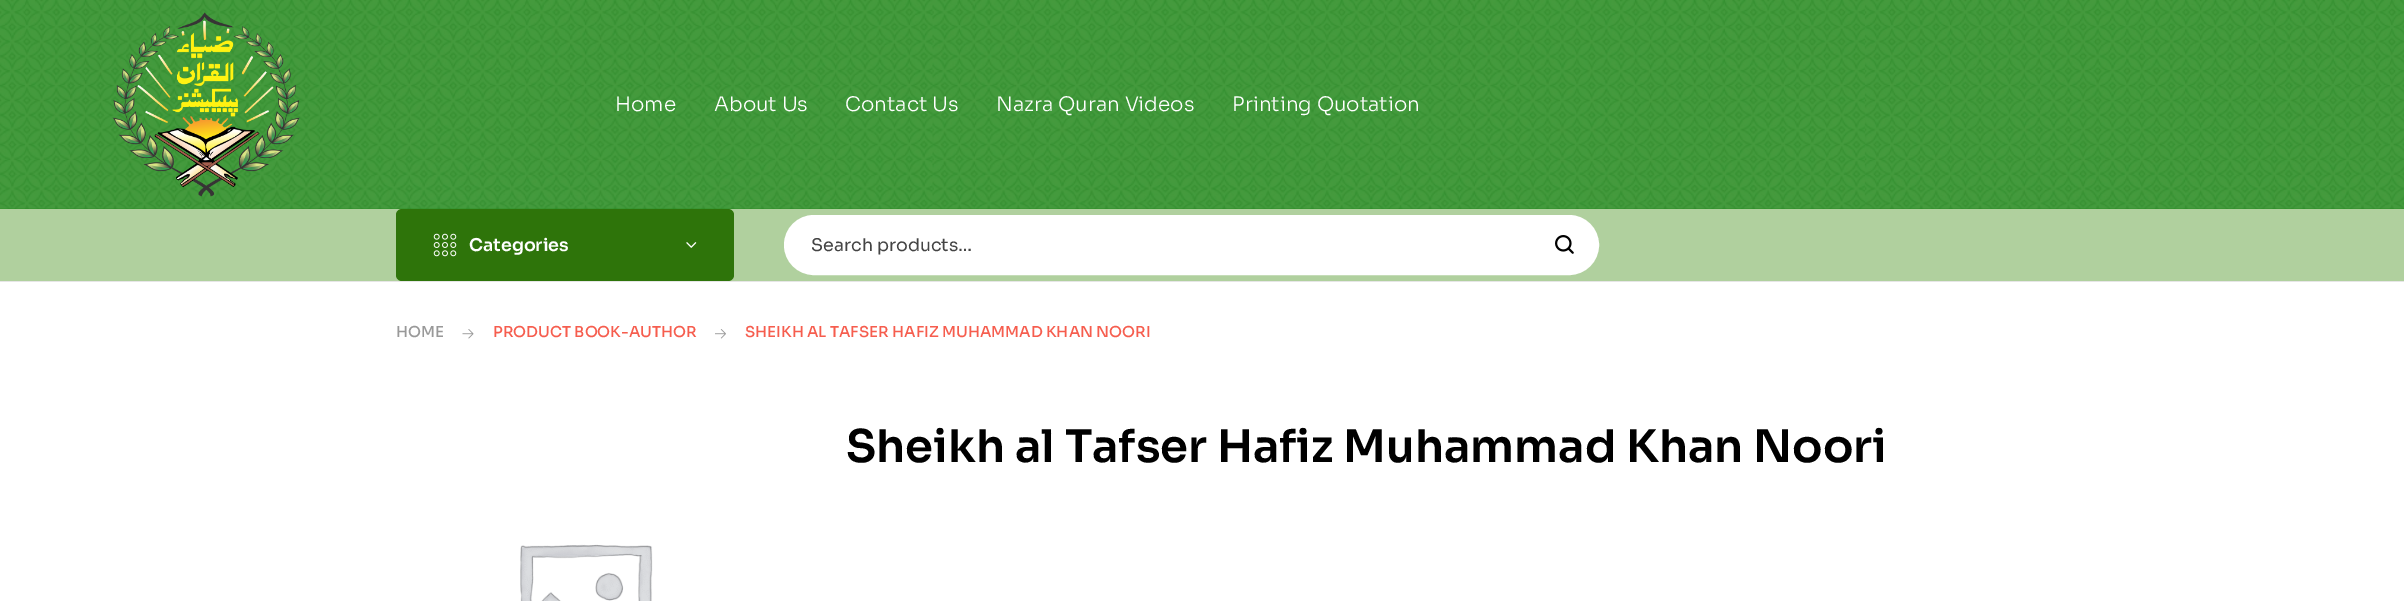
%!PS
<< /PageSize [2404 601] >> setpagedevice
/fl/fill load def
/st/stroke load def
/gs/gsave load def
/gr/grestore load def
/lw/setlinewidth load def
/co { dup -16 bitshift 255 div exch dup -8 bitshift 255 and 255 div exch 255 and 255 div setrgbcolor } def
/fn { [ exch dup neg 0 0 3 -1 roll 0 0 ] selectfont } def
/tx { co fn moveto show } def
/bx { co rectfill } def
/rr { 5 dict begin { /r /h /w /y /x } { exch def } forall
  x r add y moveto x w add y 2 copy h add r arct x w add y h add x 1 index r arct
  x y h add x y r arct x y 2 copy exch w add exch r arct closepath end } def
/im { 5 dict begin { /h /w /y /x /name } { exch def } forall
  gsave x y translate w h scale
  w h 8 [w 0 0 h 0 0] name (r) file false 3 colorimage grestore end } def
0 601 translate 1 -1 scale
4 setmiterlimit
0 0 2404 601 16#FFFFFF bx
(media/1.raw) 0 0 2404 209 im
(media/2.raw) 112 12 188 185 im
0 209 2404 72 16#B0D09E bx
16#2E740A co
396 209 338 72 6 rr fl
(media/3.raw) 433 233 24 24 im
(media/4.raw) 686 242 11 6 im
16#FFFFFF co
785.5 216.5 812 57 28.5 rr gs fl gr
3 lw
st
(media/5.raw) 1555 235 19 19 im
0 281 2404 1 16#E6E6E6 bx
(media/6.raw) 462 329 12 10 im
(media/7.raw) 715 329 11 10 im
(media/8.raw) 520 544 133 57 im
(Home) 615 111 /Sora-Light 20 16#FFFFFF tx
(About Us) 714 111 /Sora-Light 20 16#FFFFFF tx
(Contact Us) 845 111 /Sora-Light 20 16#FFFFFF tx
(Nazra Quran Videos) 996 111 /Sora-Light 20 16#FFFFFF tx
(Printing Quotation) 1232 111 /Sora-Light 20 16#FFFFFF tx
(Categories) 469 251 /Sora-SemiBold 17.5 16#FFFFFF tx
(Search products…) 811 251 /Sora-Regular 17.5 16#444444 tx
(HOME) 396 337 /Sora-Medium 15 16#999999 tx
(PRODUCT BOOK-AUTHOR) 493 337 /Sora-Medium 15 16#F65D4E tx
(SHEIKH AL TAFSER HAFIZ MUHAMMAD KHAN NOORI) 745 337 /Sora-Medium 15 16#F65D4E tx
(Sheikh al Tafser Hafiz Muhammad Khan Noori) 846 462 /Sora-SemiBold 45 16#000000 tx
showpage
